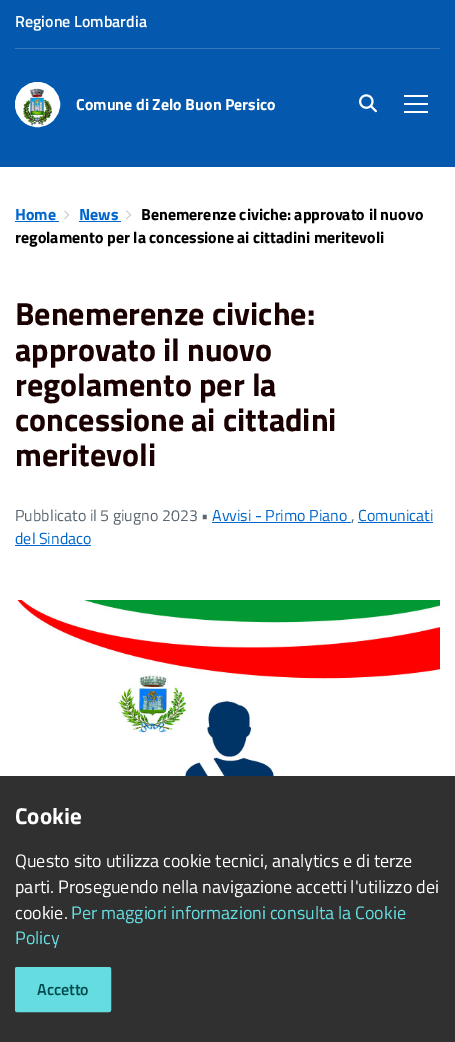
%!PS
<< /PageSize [455 1042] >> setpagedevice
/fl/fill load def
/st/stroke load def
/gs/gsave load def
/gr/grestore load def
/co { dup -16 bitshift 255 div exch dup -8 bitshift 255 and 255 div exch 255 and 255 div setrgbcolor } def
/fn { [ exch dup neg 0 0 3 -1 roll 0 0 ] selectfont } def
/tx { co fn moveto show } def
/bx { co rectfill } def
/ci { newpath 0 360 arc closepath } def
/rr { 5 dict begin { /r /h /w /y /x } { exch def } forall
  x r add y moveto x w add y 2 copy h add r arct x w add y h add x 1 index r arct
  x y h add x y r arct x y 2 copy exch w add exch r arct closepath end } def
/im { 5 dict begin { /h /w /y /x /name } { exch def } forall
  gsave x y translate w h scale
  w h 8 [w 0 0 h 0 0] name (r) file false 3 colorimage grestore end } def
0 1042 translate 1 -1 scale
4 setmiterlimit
0 0 455 1042 16#FFFFFF bx
0 0 455 167 16#0458AD bx
15 48 425 1 16#3679BD bx
16#FFFFFF co
37.5 104.5 22 ci gs fl gr
st
(media/1.raw) 23 88 30 38 im
(media/2.raw) 359 94 18 19 im
404 103 24 2 16#FFFFFF bx
404 95 24 2 16#FFFFFF bx
404 111 24 2 16#FFFFFF bx
15 221 44 1 16#0066CC bx
(media/3.raw) 64 210 6 10 im
79 221 42 1 16#0066CC bx
(media/3.raw) 126 210 6 10 im
212 522 139 1 16#0066CC bx
358 522 75 1 16#0066CC bx
15 545 76 1 16#0066CC bx
(media/4.raw) 15 600 425 176 im
0 776 455 266 16#303030 bx
16#65DDE0 co
15.5 967.5 95 44 1.5 rr gs fl gr
st
(Regione Lombardia) 15 27 /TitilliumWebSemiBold-SemiBold 16 16#FFFFFF tx
(Comune di Zelo Buon Persico) 76 110 /TitilliumWeb-Bold 16 16#FFFFFF tx
(Home) 15 220 /TitilliumWeb-Bold 16 16#0066CC tx
(News) 79 220 /TitilliumWeb-Bold 16 16#0066CC tx
(Benemerenze civiche: approvato il nuovo) 141 220 /TitilliumWeb-Bold 16 16#000000 tx
(regolamento per la concessione ai cittadini meritevoli) 15 243 /TitilliumWeb-Bold 16 16#000000 tx
(Benemerenze civiche:) 15 325 /TitilliumWeb-Bold 32 16#1A0000 tx
(approvato il nuovo) 15 361 /TitilliumWeb-Bold 32 16#1A0000 tx
(regolamento per la) 15 396 /TitilliumWeb-Bold 32 16#1A0000 tx
(concessione ai cittadini) 15 431 /TitilliumWeb-Bold 32 16#1A0000 tx
(meritevoli) 15 466 /TitilliumWeb-Bold 32 16#1A0000 tx
(Pubblicato il 5 giugno 2023 •) 15 521 /TitilliumWeb-Regular 16 16#5A6772 tx
(Avvisi - Primo Piano) 212 521 /TitilliumWeb-Regular 16 16#0066CC tx
(,) 351 521 /TitilliumWeb-Regular 16 16#5A6772 tx
(Comunicati) 358 521 /TitilliumWeb-Regular 16 16#0066CC tx
(del Sindaco) 15 544 /TitilliumWeb-Regular 16 16#0066CC tx
(Cookie) 15 824 /TitilliumWeb-Bold 23 16#FFFFFF tx
(Questo sito utilizza cookie tecnici, analytics e di terze) 15 867 /TitilliumWeb-Regular 18 16#FFFFFF tx
(parti. Proseguendo nella navigazione accetti l'utilizzo dei) 15 893 /TitilliumWeb-Regular 18 16#FFFFFF tx
(cookie.) 15 919 /TitilliumWeb-Regular 18 16#FFFFFF tx
(Per maggiori informazioni consulta la Cookie) 71 919 /TitilliumWeb-Regular 18 16#65DDE0 tx
(Policy) 15 944 /TitilliumWeb-Regular 18 16#65DDE0 tx
(Accetto) 37 995 /TitilliumWebSemiBold-SemiBold 16 16#004A4D tx
showpage
